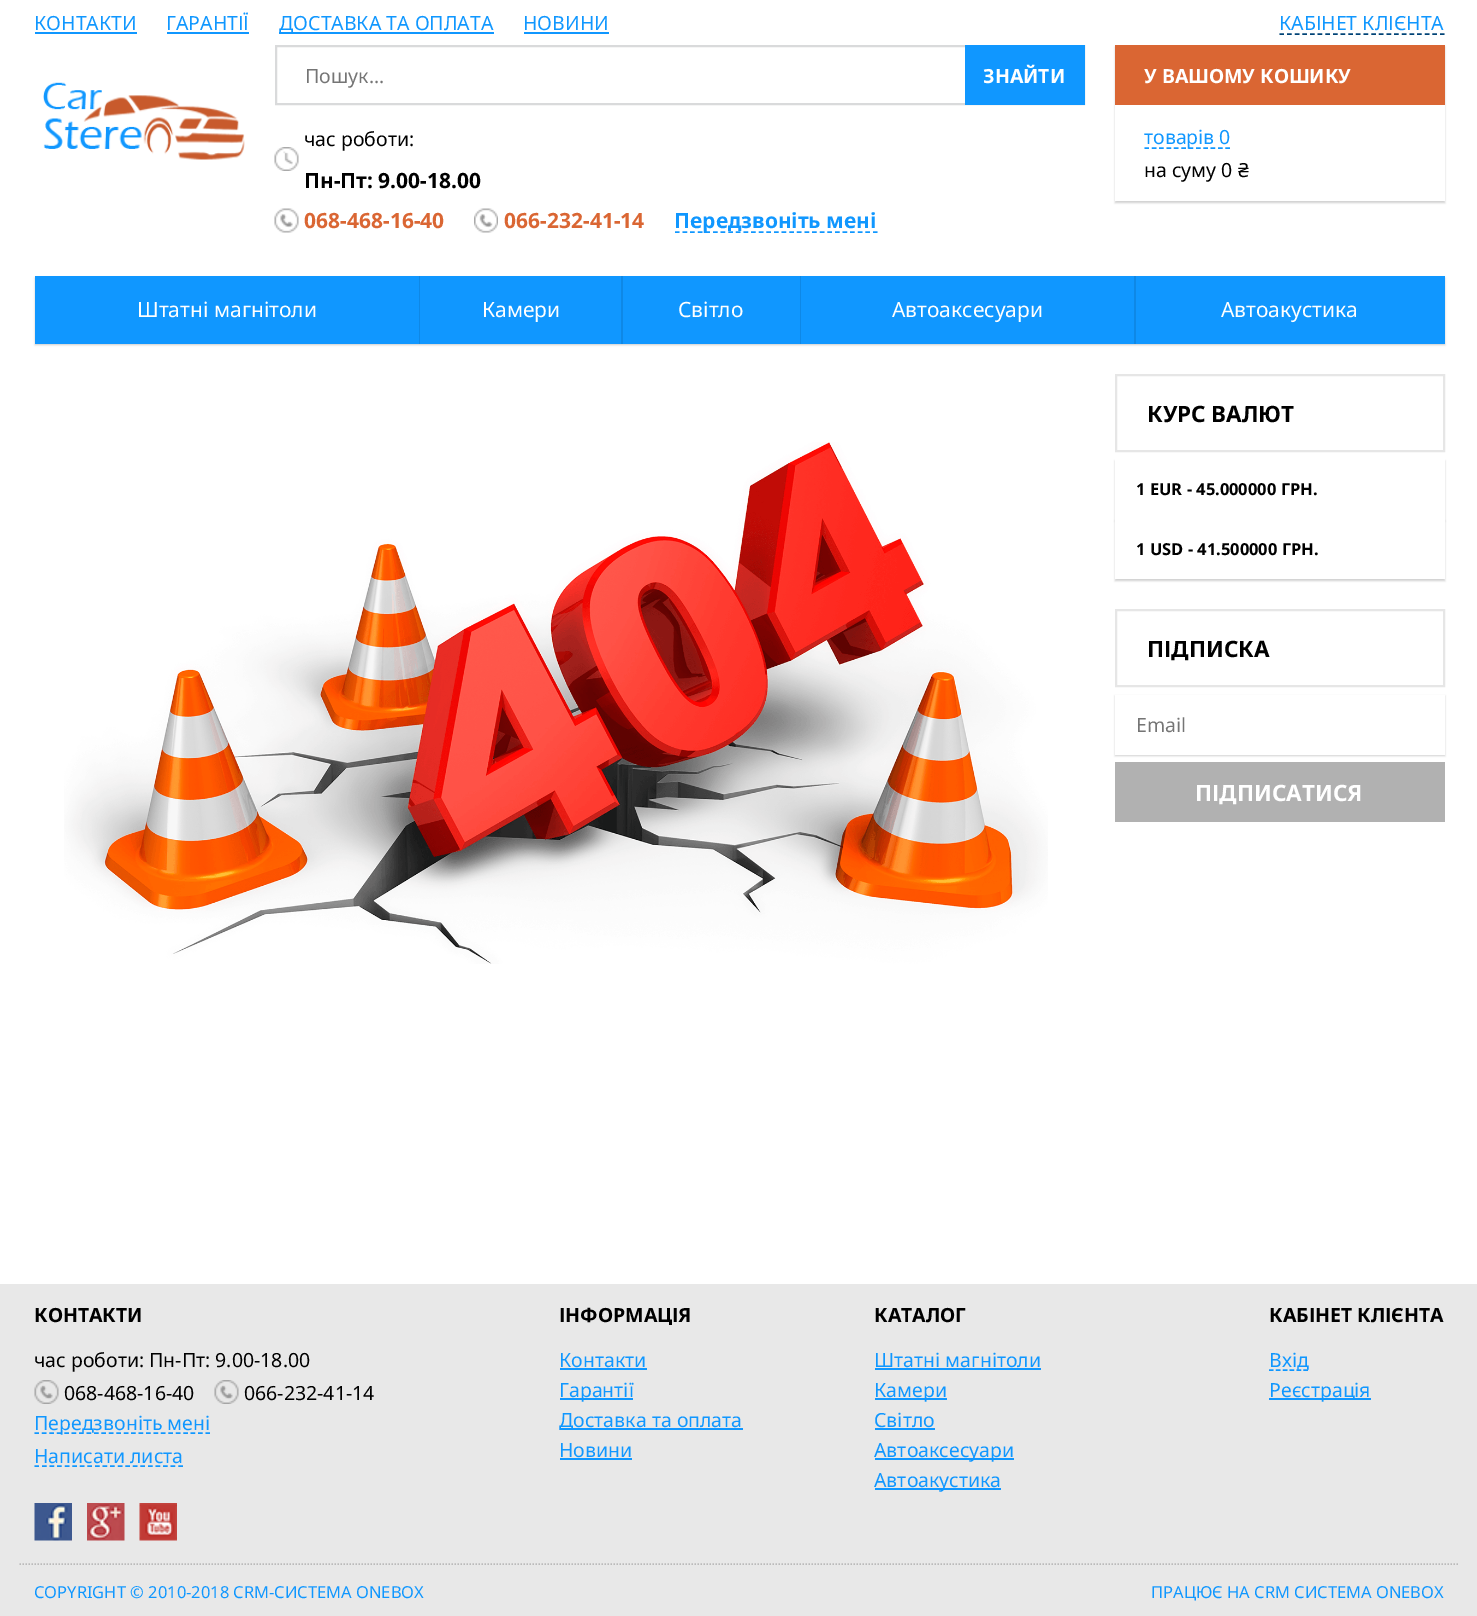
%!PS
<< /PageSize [1477 1616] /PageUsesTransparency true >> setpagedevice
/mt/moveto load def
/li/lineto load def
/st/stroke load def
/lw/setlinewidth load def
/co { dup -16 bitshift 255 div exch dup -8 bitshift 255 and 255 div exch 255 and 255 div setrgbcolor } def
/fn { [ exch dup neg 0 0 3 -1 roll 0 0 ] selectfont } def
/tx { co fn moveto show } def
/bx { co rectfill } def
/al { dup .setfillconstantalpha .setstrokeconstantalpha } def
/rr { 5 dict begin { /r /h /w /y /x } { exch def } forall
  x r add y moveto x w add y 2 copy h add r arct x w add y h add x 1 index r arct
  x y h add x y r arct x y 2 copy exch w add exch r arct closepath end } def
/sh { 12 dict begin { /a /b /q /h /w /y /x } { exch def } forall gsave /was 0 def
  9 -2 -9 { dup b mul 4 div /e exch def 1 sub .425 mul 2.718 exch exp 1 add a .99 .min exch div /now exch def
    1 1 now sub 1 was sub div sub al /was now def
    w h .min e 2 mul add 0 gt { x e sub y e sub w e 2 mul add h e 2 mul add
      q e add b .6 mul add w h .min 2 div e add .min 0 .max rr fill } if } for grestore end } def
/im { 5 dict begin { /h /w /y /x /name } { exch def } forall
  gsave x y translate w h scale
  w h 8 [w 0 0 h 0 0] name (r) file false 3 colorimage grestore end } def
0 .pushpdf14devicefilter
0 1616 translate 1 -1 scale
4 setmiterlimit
0 0 1477 1616 16#FFFFFF bx
35 32 102 2 16#1097FF bx
167 32 82 2 16#1097FF bx
279 32 215 2 16#1097FF bx
524 32 85 2 16#1097FF bx
16#004376 co
1.5 lw
[4.5 3.15] 0 setdash
1279.5 34 mt 1444.5 34 li st
(media/1.raw) 43 82 202 78 im
16#D9DADB co
2 lw
[] 0 setdash
276 46 808 58 rectstroke
965 45 120 60 16#1097FF bx
(media/2.raw) 274 147 25 24 im
(media/3.raw) 274 208 25 25 im
(media/4.raw) 474 208 24 25 im
1.5 lw
[4.5 3.12] 0 setdash
675 232 mt 877.5 232 li st
16#D0D0D0 co
1115 47 330 156 0 1 1 sh
1115 105 330 96 16#FFFFFF bx
1115 45 330 60 16#DA6633 bx
16#1097FF co
[4.5 2.86] 0 setdash
1144.5 148 mt 1230 148 li st
16#000000 co
35 278 1410 67 0 1 .2 sh
35 276 1410 68 16#1097FF bx
419 276 1 68 16#0E88E6 bx
621 276 2 68 16#0E88E6 bx
800 276 1 68 16#0E88E6 bx
1134 276 2 68 16#0E88E6 bx
(media/5.raw) 64 442 984 522 im
16#E6E6E6 co
2 lw
[] 0 setdash
1116 375 328 76 rectstroke
16#D0D0D0 co
1115 461 330 60 0 1 1 sh
1115 459 330 60 16#FFFFFF bx
16#D0D0D0 co
1115 521 330 60 0 1 1 sh
1115 519 330 60 16#FFFFFF bx
16#E6E6E6 co
1116 610 328 76 rectstroke
16#D0D0D0 co
1115 696 330 60 0 1 1 sh
1115 695 330 60 16#FFFFFF bx
1115 762 330 60 16#B1B1B1 bx
0 1284 1477 332 16#E8E8E8 bx
(media/6.raw) 34 1380 25 24 im
(media/6.raw) 214 1380 25 24 im
16#1097FF co
1.5 lw
[4.5 2.94] 0 setdash
34.5 1433 mt 210 1433 li st
[4.5 3.07] 0 setdash
34.5 1466 mt 183 1466 li st
(media/7.raw) 34 1503 38 38 im
(media/8.raw) 87 1503 38 38 im
(media/9.raw) 139 1503 38 38 im
560 1368 87 2 16#1097FF bx
560 1398 73 2 16#1097FF bx
560 1428 183 2 16#1097FF bx
560 1458 72 2 16#1097FF bx
875 1368 166 2 16#1097FF bx
875 1398 72 2 16#1097FF bx
875 1428 60 2 16#1097FF bx
875 1458 139 2 16#1097FF bx
875 1488 126 2 16#1097FF bx
[4.5 2.4] 0 setdash
1269 1370 mt 1308 1370 li st
1269 1398 102 2 16#1097FF bx
16#BABABA co
[1.5 1.5] 0 setdash
19.5 1564 mt 1459.5 1564 li st
(КОНТАКТИ) 34 30 /NotoSans-Regular 19.5 16#1097FF tx
(ГАРАНТІЇ) 166 30 /NotoSans-Regular 19.5 16#1097FF tx
(ДОСТАВКА ТА ОПЛАТА) 279 30 /NotoSans-Regular 19.5 16#1097FF tx
(НОВИНИ) 523 30 /NotoSans-Regular 19.5 16#1097FF tx
(КАБІНЕТ КЛІЄНТА) 1279 30 /NotoSans-Regular 19.5 16#1097FF tx
(Пошук...) 305 83 /NotoSans-Regular 19.5 16#757575 tx
(ЗНАЙТИ) 983 83 /NotoSans-Bold 19.5 16#FFFFFF tx
(час роботи:) 304 146 /NotoSans-Regular 19.5 16#000000 tx
(Пн-Пт: 9.00-18.00) 304 188 /NotoSans-Bold 21 16#000000 tx
(068-468-16-40) 304 228 /NotoSans-Bold 21 16#DA6633 tx
(066-232-41-14) 504 228 /NotoSans-Bold 21 16#DA6633 tx
(Передзвоніть мені) 674 228 /NotoSans-Bold 21 16#1097FF tx
(У ВАШОМУ КОШИКУ) 1144 83 /NotoSans-Bold 19.5 16#FFFFFF tx
(товарів 0) 1144 144 /NotoSans-Regular 19.5 16#1097FF tx
(на суму 0 ₴) 1144 177 /NotoSans-Regular 19.5 16#000000 tx
(Штатні магнітоли) 137 317 /NotoSans-Regular 21 16#FFFFFF tx
(Камери) 482 317 /NotoSans-Regular 21 16#FFFFFF tx
(Світло) 678 317 /NotoSans-Regular 21 16#FFFFFF tx
(Автоаксесуари) 892 317 /NotoSans-Regular 21 16#FFFFFF tx
(Автоакустика) 1221 317 /NotoSans-Regular 21 16#FFFFFF tx
(КУРС ВАЛЮТ) 1147 422 /NotoSans-Bold 22.5 16#000000 tx
(1 EUR - 45.000000 ГРН.) 1136 495 /NotoSans-Bold 16.5 16#000000 tx
(1 USD - 41.500000 ГРН.) 1136 555 /NotoSans-Bold 16.5 16#000000 tx
(ПІДПИСКА) 1147 657 /NotoSans-Bold 22.5 16#000000 tx
(Email) 1136 732 /NotoSans-Regular 19.5 16#757575 tx
(ПІДПИСАТИСЯ) 1195 801 /NotoSans-Bold 22.5 16#FFFFFF tx
(КОНТАКТИ) 34 1322 /NotoSans-Bold 19.5 16#000000 tx
(час роботи: Пн-Пт: 9.00-18.00) 34 1367 /NotoSans-Regular 19.5 16#000000 tx
(068-468-16-40) 64 1400 /NotoSans-Regular 19.5 16#000000 tx
(066-232-41-14) 244 1400 /NotoSans-Regular 19.5 16#000000 tx
(Передзвоніть мені) 34 1430 /NotoSans-Regular 19.5 16#1097FF tx
(Написати листа) 34 1463 /NotoSans-Regular 19.5 16#1097FF tx
(ІНФОРМАЦІЯ) 559 1322 /NotoSans-Bold 19.5 16#000000 tx
(Контакти) 559 1367 /NotoSans-Regular 19.5 16#1097FF tx
(Гарантії) 559 1397 /NotoSans-Regular 19.5 16#1097FF tx
(Доставка та оплата) 559 1427 /NotoSans-Regular 19.5 16#1097FF tx
(Новини) 559 1457 /NotoSans-Regular 19.5 16#1097FF tx
(КАТАЛОГ) 874 1322 /NotoSans-Bold 19.5 16#000000 tx
(Штатні магнітоли) 874 1367 /NotoSans-Regular 19.5 16#1097FF tx
(Камери) 874 1397 /NotoSans-Regular 19.5 16#1097FF tx
(Світло) 874 1427 /NotoSans-Regular 19.5 16#1097FF tx
(Автоаксесуари) 874 1457 /NotoSans-Regular 19.5 16#1097FF tx
(Автоакустика) 874 1487 /NotoSans-Regular 19.5 16#1097FF tx
(КАБІНЕТ КЛІЄНТА) 1269 1322 /NotoSans-Bold 19.5 16#000000 tx
(Вхід) 1269 1367 /NotoSans-Regular 19.5 16#1097FF tx
(Реєстрація) 1269 1397 /NotoSans-Regular 19.5 16#1097FF tx
(COPYRIGHT © 2010-2018 CRM-СИСТЕМА ONEBOX) 34 1598 /NotoSans-Regular 16.5 16#1097FF tx
(ПРАЦЮЄ НА CRM СИСТЕМА ONEBOX) 1151 1598 /NotoSans-Regular 16.5 16#1097FF tx
.poppdf14devicefilter showpage
